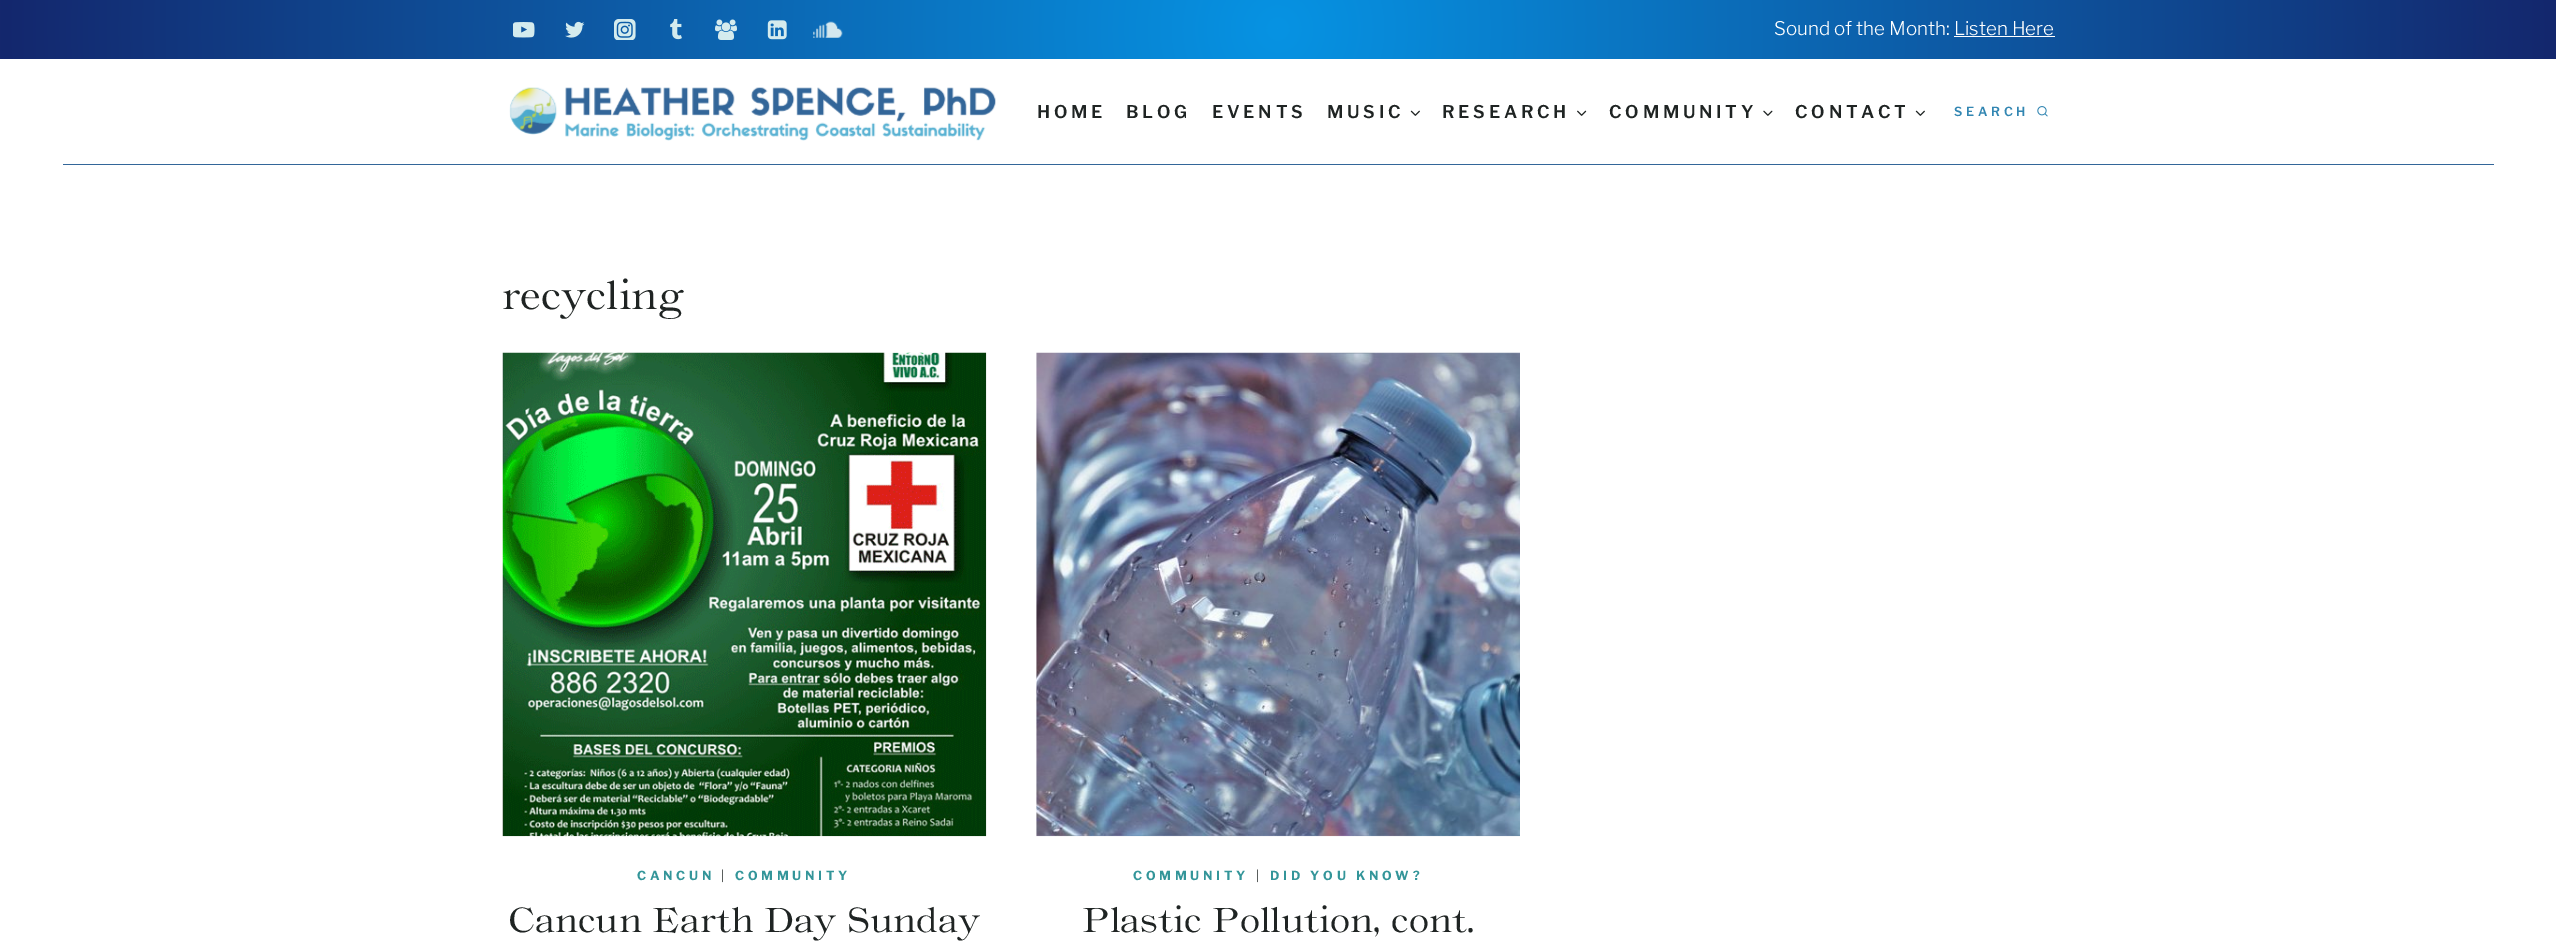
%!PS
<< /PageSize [2556 948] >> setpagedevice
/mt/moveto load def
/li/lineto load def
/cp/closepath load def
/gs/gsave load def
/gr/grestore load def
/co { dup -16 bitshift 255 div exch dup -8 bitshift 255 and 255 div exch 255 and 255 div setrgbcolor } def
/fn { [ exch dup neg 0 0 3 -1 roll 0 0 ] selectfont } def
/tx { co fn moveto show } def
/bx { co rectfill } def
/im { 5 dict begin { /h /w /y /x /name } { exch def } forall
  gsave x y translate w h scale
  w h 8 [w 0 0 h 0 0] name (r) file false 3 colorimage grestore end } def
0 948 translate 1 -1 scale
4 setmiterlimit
0 0 2556 948 16#FFFFFF bx
gs 0 0 mt 2556 0 li 2556 59 li 0 59 li cp clip newpath 1278 29 translate 1278 1278 scale
<< /ShadingType 3 /ColorSpace /DeviceRGB /Coords [0 0 0 0 0 1] /Extend [true true] /Function << /FunctionType 2 /Domain [0 1] /C0 [.024 .576 .89] /C1 [.078 .153 .427] /N 1 >> >> shfill gr
(media/1.raw) 513 22 22 16 im
(media/2.raw) 565 21 20 17 im
(media/3.raw) 614 19 22 21 im
(media/4.raw) 670 19 12 21 im
(media/5.raw) 715 19 22 21 im
(media/6.raw) 767 20 20 20 im
(media/7.raw) 813 21 30 17 im
1954 36 101 1 16#FFFFFF bx
63 164 2431 1 16#336699 bx
(media/8.raw) 509 87 487 54 im
(media/9.raw) 1410 110 10 6 im
(media/10.raw) 1577 110 10 6 im
(media/11.raw) 1763 110 10 6 im
(media/9.raw) 1915 110 10 6 im
(media/12.raw) 2037 106 11 11 im
(media/13.raw) 502 352 485 485 im
(media/14.raw) 1036 352 484 485 im
(Sound of the Month: Listen Here) 1774 35 /LibreFranklin-Light 18.75 16#FFFFFF tx
/LibreFranklin-SemiBold 17.5 fn
16#1F2423 co
1037 118 mt 3.75 0 (HOME) ashow
1126 118 mt 3.75 0 (BLOG) ashow
1212 118 mt 3.75 0 (EVENTS) ashow
1327 118 mt 3.75 0 (MUSIC) ashow
1442 118 mt 3.75 0 (RESEARCH) ashow
1609 118 mt 3.75 0 (COMMUNITY) ashow
1795 118 mt 3.75 0 (CONTACT) ashow
/LibreFranklin-SemiBold 12.5 fn
16#3286B2 co
1954 116 mt 3.75 0 (SEARCH) ashow
(recycling) 502 309 /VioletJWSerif-Regular 40 16#1F2423 tx
/LibreFranklin-Bold 12.5 fn
16#339599 co
637 880 mt 3.75 0 (CANCUN) ashow
/LibreFranklin-Light 12.5 fn
16#1F2423 co
721 880 mt 3.75 0 (|) ashow
/LibreFranklin-Bold 12.5 fn
16#339599 co
735 880 mt 3.75 0 (COMMUNITY) ashow
(Cancun Earth Day Sunday) 508 932 /VioletJWSerif-Regular 35 16#1F2423 tx
/LibreFranklin-Bold 12.5 fn
16#339599 co
1133 880 mt 3.75 0 (COMMUNITY) ashow
/LibreFranklin-Light 12.5 fn
16#1F2423 co
1256 880 mt 3.75 0 (|) ashow
/LibreFranklin-Bold 12.5 fn
16#339599 co
1270 880 mt 3.75 0 (DID YOU KNOW?) ashow
(Plastic Pollution, cont.) 1082 932 /VioletJWSerif-Regular 35 16#1F2423 tx
showpage
